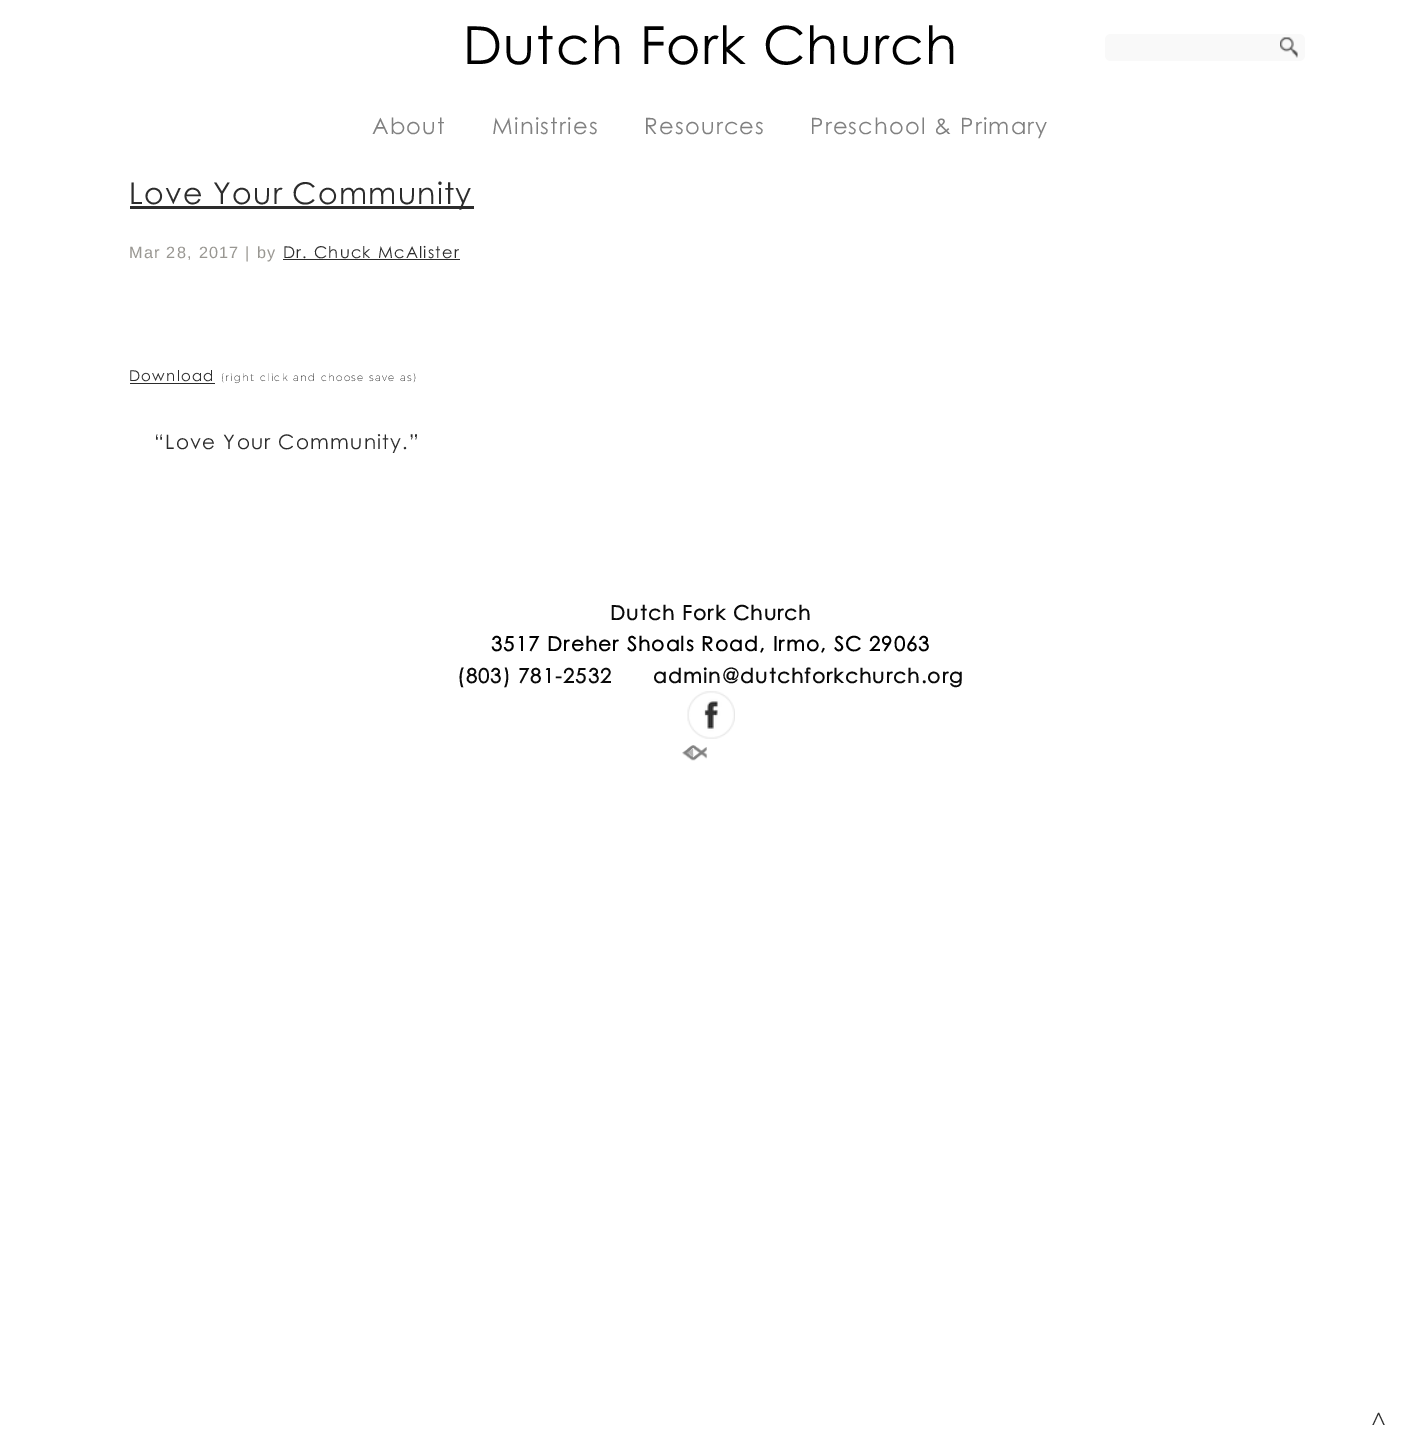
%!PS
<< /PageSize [1421 1450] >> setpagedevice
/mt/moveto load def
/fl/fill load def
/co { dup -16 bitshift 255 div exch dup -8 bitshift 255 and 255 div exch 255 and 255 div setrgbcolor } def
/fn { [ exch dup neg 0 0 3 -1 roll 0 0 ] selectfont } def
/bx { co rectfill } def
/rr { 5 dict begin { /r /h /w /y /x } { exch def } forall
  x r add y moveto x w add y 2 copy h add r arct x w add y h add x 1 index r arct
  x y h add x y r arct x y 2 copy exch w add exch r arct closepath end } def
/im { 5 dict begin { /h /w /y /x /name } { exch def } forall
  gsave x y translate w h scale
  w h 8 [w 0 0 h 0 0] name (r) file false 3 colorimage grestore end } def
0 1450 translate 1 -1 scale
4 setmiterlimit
0 0 1421 1450 16#FFFFFF bx
16#F9F9F9 co
1105 34 200 27 6 rr fl
(media/1.raw) 1280 37 18 21 im
130 206 344 3 16#2C2C2C bx
283 259 177 1 16#2C2C2C bx
130 383 85 1 16#2C2C2C bx
(media/2.raw) 687 691 48 48 im
(media/3.raw) 682 745 26 16 im
/CenturyGothic-Regular 52.5 fn
16#000000 co
463 64 mt 1.25 0 (Dutch Fork Church) ashow
/CenturyGothic-Regular 22.5 fn
16#808080 co
372 134 mt 1.25 0 (About) ashow
492 134 mt 1.25 0 (Ministries) ashow
644 134 mt 1.25 0 (Resources) ashow
810 134 mt 1.25 0 (Preschool & Primary) ashow
/CenturyGothic-Regular 30 fn
16#2C2C2C co
129 204 mt 1.25 0 (Love Your Community) ashow
/LiberationSans-Regular 16.25 fn
16#999792 co
129 258 mt 1.25 0 (Mar 28, 2017 | by) ashow
/CenturyGothic-Regular 16.25 fn
16#2C2C2C co
283 258 mt 1.25 0 (Dr. Chuck McAlister) ashow
/CenturyGothic-Regular 15 fn
129 381 mt 1.25 0 (Download) ashow
/Montserrat-ExtraLight 10.5 fn
221 381 mt 1.25 0 (\(right click and choose save as\)) ashow
/CenturyGothic-Regular 20 fn
154 449 mt 1.25 0 (“Love Your Community.”) ashow
/CenturyGothic-Bold 20 fn
16#0A0A0A co
610 620 mt 1.25 0 (Dutch Fork Church) ashow
16#000000 co
491 651 mt 1.25 0 (3517 Dreher Shoals Road, Irmo, SC 29063) ashow
16#0A0A0A co
457 683 mt 1.25 0 (\(803\) 781-2532) ashow
653 683 mt 1.25 0 (admin@dutchforkchurch.org) ashow
/CenturyGothic-Regular 22.5 fn
16#2C2C2C co
1371 1429 mt 1.25 0 (^) ashow
showpage
